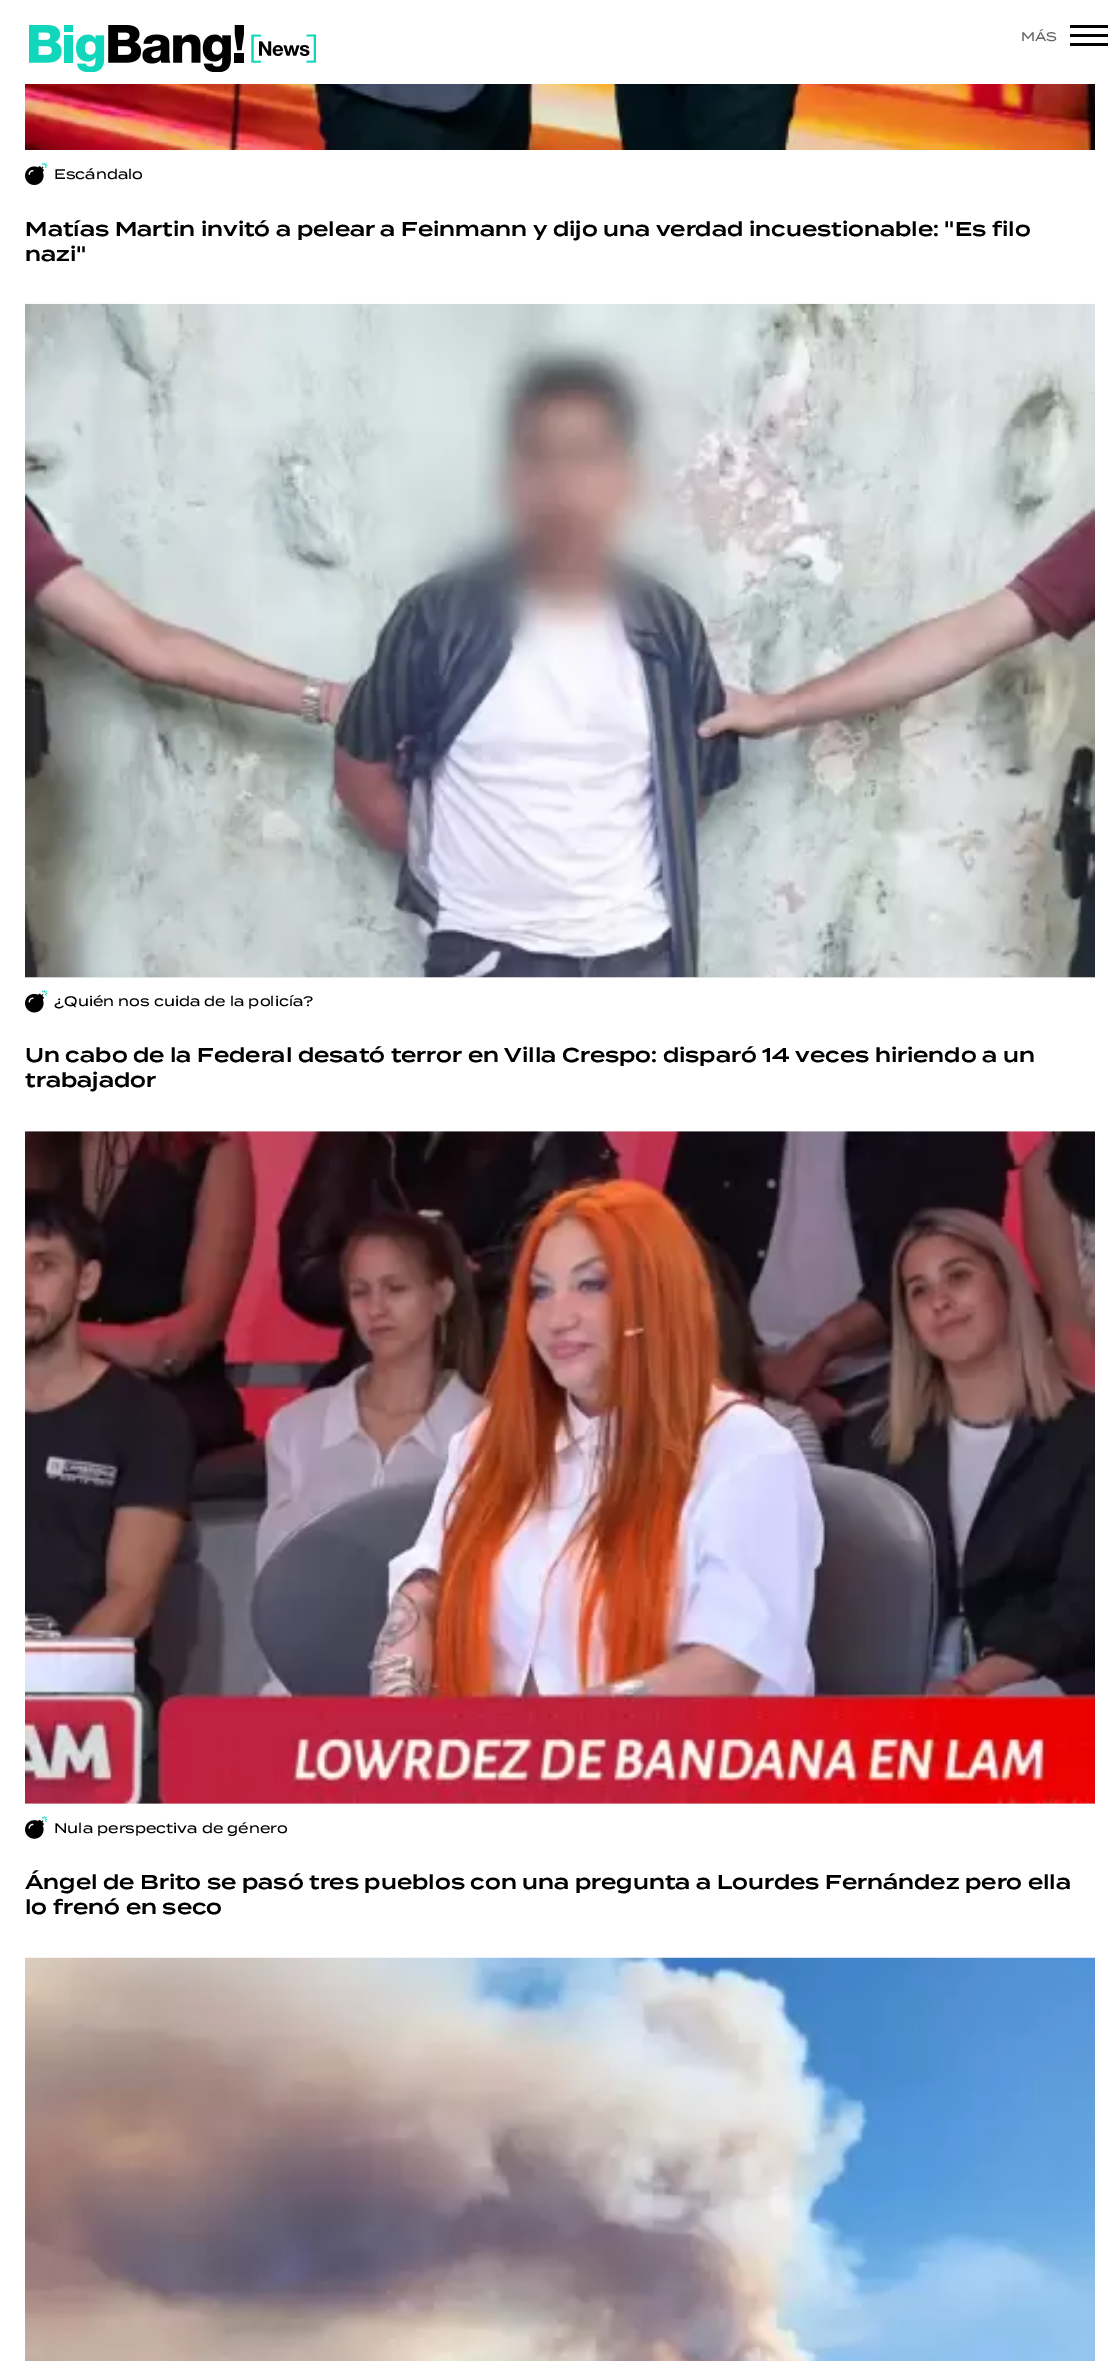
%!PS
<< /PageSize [1119 2361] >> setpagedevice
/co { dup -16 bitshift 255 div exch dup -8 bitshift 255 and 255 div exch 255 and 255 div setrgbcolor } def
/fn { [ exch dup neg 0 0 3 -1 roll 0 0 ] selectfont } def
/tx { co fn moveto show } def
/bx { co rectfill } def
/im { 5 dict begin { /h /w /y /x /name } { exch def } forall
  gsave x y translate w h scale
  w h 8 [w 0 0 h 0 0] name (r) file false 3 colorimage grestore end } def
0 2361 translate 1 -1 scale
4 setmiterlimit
0 0 1119 2361 16#FFFFFF bx
(media/1.raw) 29 25 287 47 im
1070 25 38 3 16#000000 bx
1070 34 38 3 16#000000 bx
1070 43 38 3 16#000000 bx
(media/2.raw) 25 84 1070 66 im
(media/3.raw) 25 163 23 22 im
25 977 1070 1 16#F0F0F0 bx
(media/4.raw) 25 303 1070 675 im
(media/5.raw) 25 990 23 23 im
25 1131 1070 673 16#F0F0F0 bx
(media/6.raw) 25 1131 1070 673 im
(media/7.raw) 25 1816 23 23 im
(media/8.raw) 25 1957 1070 404 im
(MÁS) 1021 41 /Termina-Medium 12.5 16#666666 tx
(Escándalo) 54 179 /Termina-Medium 13.75 16#000000 tx
(Matías Martin invitó a pelear a Feinmann y dijo una verdad incuestionable: "Es filo) 25 236 /Termina-SemiBold 20 16#000000 tx
(nazi") 25 261 /Termina-SemiBold 20 16#000000 tx
(¿Quién nos cuida de la policía?) 54 1006 /Termina-Medium 13.75 16#000000 tx
(Un cabo de la Federal desató terror en Villa Crespo: disparó 14 veces hiriendo a un) 25 1062 /Termina-SemiBold 20 16#000000 tx
(trabajador) 25 1087 /Termina-SemiBold 20 16#000000 tx
(Nula perspectiva de género) 54 1833 /Termina-Medium 13.75 16#000000 tx
(Ángel de Brito se pasó tres pueblos con una pregunta a Lourdes Fernández pero ella) 25 1889 /Termina-SemiBold 20 16#000000 tx
(lo frenó en seco) 25 1914 /Termina-SemiBold 20 16#000000 tx
showpage
